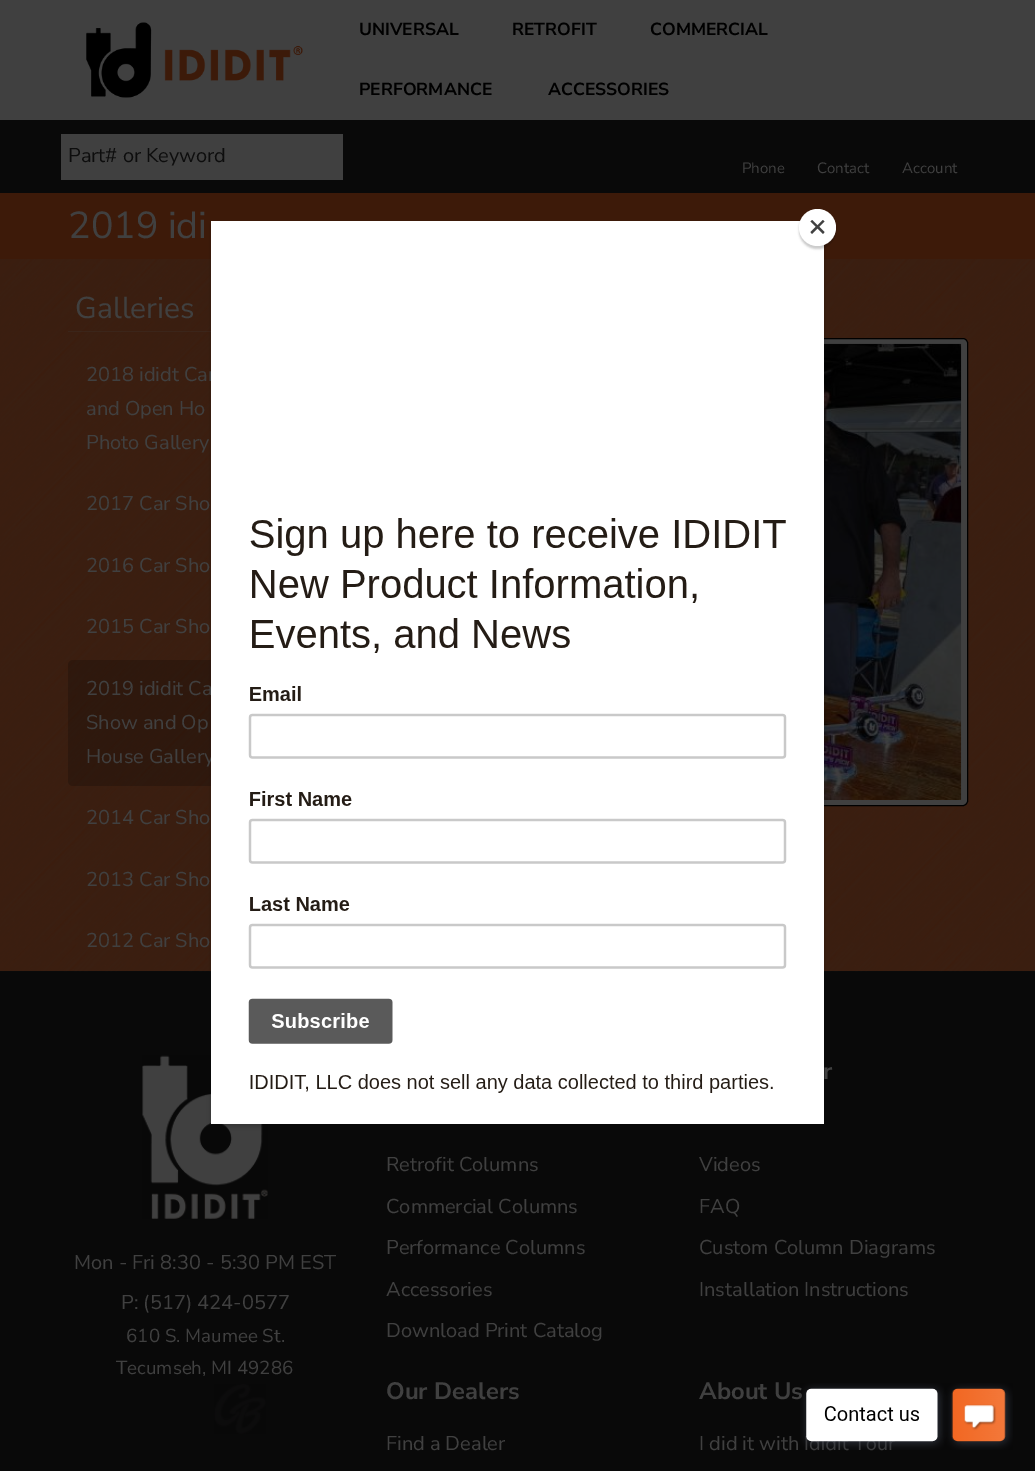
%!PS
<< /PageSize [1035 1471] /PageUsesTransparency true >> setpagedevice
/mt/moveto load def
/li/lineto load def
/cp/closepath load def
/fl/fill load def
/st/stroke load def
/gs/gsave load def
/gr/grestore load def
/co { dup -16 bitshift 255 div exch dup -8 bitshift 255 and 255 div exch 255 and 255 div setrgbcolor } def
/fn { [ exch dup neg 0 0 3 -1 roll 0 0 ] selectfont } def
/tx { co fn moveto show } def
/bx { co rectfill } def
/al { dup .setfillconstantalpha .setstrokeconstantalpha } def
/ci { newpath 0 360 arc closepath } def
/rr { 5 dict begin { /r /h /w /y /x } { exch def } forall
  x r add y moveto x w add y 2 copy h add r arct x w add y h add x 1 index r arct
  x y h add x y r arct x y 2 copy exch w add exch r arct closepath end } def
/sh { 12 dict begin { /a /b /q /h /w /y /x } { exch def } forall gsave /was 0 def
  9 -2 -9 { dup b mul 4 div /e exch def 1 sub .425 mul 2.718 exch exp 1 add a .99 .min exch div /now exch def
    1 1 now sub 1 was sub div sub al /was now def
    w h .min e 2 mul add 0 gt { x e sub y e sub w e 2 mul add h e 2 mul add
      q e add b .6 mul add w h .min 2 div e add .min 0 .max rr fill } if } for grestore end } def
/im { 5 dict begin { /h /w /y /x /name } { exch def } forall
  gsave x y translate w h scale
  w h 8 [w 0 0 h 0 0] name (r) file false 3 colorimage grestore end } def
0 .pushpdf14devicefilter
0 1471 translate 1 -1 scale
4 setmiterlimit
0 0 1035 1471 16#404040 bx
(media/1.raw) 86 22 217 76 im
0 120 1035 73 16#090909 bx
61 134 282 46 16#404040 bx
0 193 1035 778 16#3D1A09 bx
0 971 1035 500 16#090909 bx
(media/2.raw) 0 259 1035 713 im
0.2 al
68 331 143 1 16#404040 bx
16#000000 co
68 660 197 126 5 rr fl
1 al
16#404040 co
303.5 338.5 664 467 4.5 rr gs fl gr
16#000000 co
st
(media/3.raw) 824 343 138 457 im
(media/4.raw) 142 1055 126 164 im
(media/5.raw) 214 1384 52 50 im
211 224 613 902 0 2.5 .2 sh
(UNIVERSAL) 359 35 /NunitoSans-Bold 17.5 16#000000 tx
(RETROFIT) 512 35 /NunitoSans-Bold 17.5 16#000000 tx
(COMMERCIAL) 650 35 /NunitoSans-Bold 17.5 16#000000 tx
(PERFORMANCE) 359 95 /NunitoSans-Bold 17.5 16#000000 tx
(ACCESSORIES) 548 95 /NunitoSans-Bold 17.5 16#000000 tx
(Part# or Keyword) 68 162 /NunitoSans-Regular 20 16#0D0D0D tx
(Phone) 742 173 /NunitoSans-Regular 15 16#404040 tx
(Contact) 817 173 /NunitoSans-Regular 15 16#404040 tx
(Account) 902 173 /NunitoSans-Regular 15 16#404040 tx
(2019 idi) 68 238 /NunitoSans-Regular 37.5 16#404040 tx
(Galleries) 75 318 /NunitoSans-Regular 30 16#404040 tx
(2018 ididt Car) 86 381 /NunitoSans-Regular 20 16#404040 tx
(and Open Ho) 86 415 /NunitoSans-Regular 20 16#404040 tx
(Photo Gallery) 86 449 /NunitoSans-Regular 20 16#404040 tx
(2017 Car Sho) 86 510 /NunitoSans-Regular 20 16#404040 tx
(2016 Car Sho) 86 572 /NunitoSans-Regular 20 16#404040 tx
(2015 Car Sho) 86 633 /NunitoSans-Regular 20 16#404040 tx
(2019 ididit Ca) 86 695 /NunitoSans-Regular 20 16#404040 tx
(Show and Op) 86 729 /NunitoSans-Regular 20 16#404040 tx
(House Gallery) 86 763 /NunitoSans-Regular 20 16#404040 tx
(2014 Car Sho) 86 824 /NunitoSans-Regular 20 16#404040 tx
(2013 Car Sho) 86 886 /NunitoSans-Regular 20 16#404040 tx
(2012 Car Sho) 86 947 /NunitoSans-Regular 20 16#404040 tx
(Mon - Fri 8:30 - 5:30 PM EST) 74 1269 /NunitoSans-Regular 20 16#404040 tx
(P: \(517\) 424-0577) 121 1309 /NunitoSans-Regular 20 16#404040 tx
(610 S. Maumee St.) 126 1342 /NunitoSans-Regular 18.75 16#404040 tx
(Tecumseh, MI 49286) 116 1374 /NunitoSans-Regular 18.75 16#404040 tx
(Retrofit Columns) 386 1171 /NunitoSans-Regular 20 16#404040 tx
(Commercial Columns) 386 1213 /NunitoSans-Regular 20 16#404040 tx
(Performance Columns) 386 1254 /NunitoSans-Regular 20 16#404040 tx
(Accessories) 386 1296 /NunitoSans-Regular 20 16#404040 tx
(Download Print Catalog) 386 1337 /NunitoSans-Regular 20 16#404040 tx
(r) 823 1079 /NunitoSans-Bold 23.75 16#404040 tx
(Videos) 699 1171 /NunitoSans-Regular 20 16#404040 tx
(FAQ) 699 1213 /NunitoSans-Regular 20 16#404040 tx
(Custom Column Diagrams) 699 1254 /NunitoSans-Regular 20 16#404040 tx
(Installation Instructions) 699 1296 /NunitoSans-Regular 20 16#404040 tx
(Our Dealers) 386 1399 /NunitoSans-Bold 23.75 16#404040 tx
(Find a Dealer) 386 1450 /NunitoSans-Regular 20 16#404040 tx
(About Us) 699 1399 /NunitoSans-Bold 23.75 16#404040 tx
(I did it with Ididit Tour) 699 1450 /NunitoSans-Regular 20 16#404040 tx
(media/6.raw) 211 221 613 903 im
16#000000 co
799 211 37 38 18.5 1 .2 sh
16#FFFFFF co
817.5 227.5 18.5 ci fl
16#414141 co
823 220 mt 824.5 221.5 li 812 234 li 810.5 232 li cp fl
810.5 221.5 mt 812 220 li 824.5 232 li 823 234 li cp fl
(media/7.raw) 800 1383 213 67 im
.poppdf14devicefilter showpage
